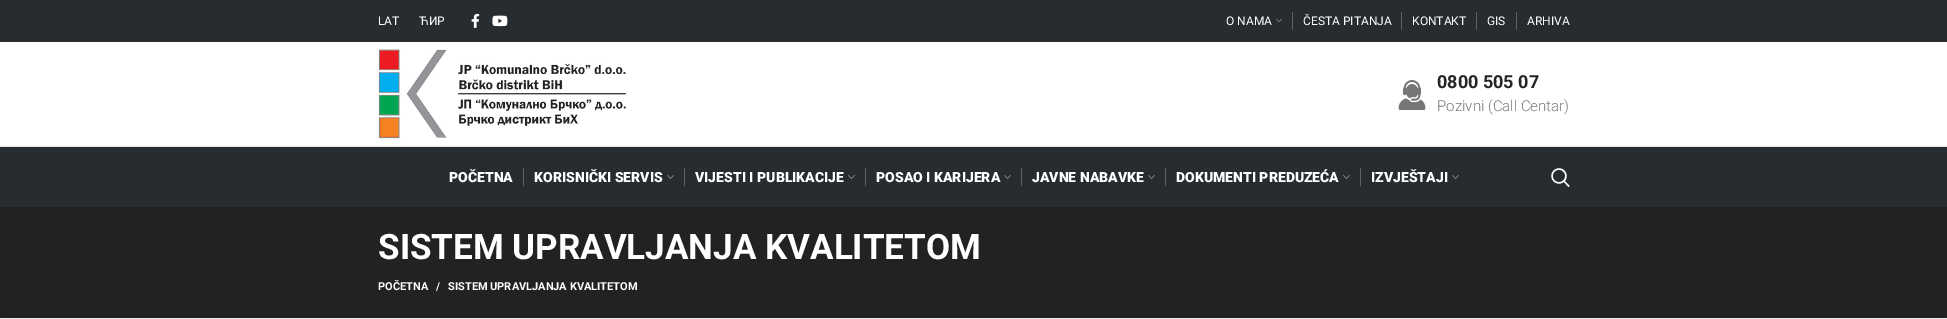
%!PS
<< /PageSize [1947 319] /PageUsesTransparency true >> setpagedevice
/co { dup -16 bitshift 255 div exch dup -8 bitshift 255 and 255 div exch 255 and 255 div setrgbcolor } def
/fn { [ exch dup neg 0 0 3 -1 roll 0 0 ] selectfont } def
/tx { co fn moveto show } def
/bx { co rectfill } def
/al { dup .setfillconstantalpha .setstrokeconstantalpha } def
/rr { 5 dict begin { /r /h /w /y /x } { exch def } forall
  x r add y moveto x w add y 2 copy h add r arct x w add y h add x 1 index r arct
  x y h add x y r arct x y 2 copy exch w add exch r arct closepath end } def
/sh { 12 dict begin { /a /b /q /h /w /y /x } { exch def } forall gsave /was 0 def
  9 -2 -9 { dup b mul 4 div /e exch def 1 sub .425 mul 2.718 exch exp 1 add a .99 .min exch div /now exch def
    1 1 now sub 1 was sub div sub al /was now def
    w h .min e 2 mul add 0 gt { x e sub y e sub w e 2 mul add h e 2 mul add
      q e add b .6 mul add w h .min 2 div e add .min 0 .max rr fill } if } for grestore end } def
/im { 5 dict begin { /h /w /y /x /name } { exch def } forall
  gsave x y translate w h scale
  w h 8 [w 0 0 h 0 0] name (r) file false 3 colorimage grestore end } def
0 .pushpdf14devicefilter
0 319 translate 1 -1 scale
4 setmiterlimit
0 0 1947 319 16#FFFFFF bx
0 0 1947 42 16#272C30 bx
(media/1.raw) 471 13 9 15 im
(media/2.raw) 492 15 16 12 im
(media/3.raw) 1276 18 6 4 im
1292 12 1 18 16#5D6164 bx
1401 12 1 18 16#5D6164 bx
1476 12 1 18 16#5D6164 bx
1516 12 1 18 16#5D6164 bx
0 146 1947 1 16#E6E6E6 bx
(media/4.raw) 378 49 248 90 im
(media/5.raw) 1398 80 28 30 im
0 147 1947 60 16#272C30 bx
523 168 1 18 16#5D6164 bx
(media/6.raw) 667 175 7 4 im
684 168 1 18 16#5D6164 bx
(media/6.raw) 848 175 7 4 im
865 168 1 18 16#5D6164 bx
(media/6.raw) 1004 175 7 4 im
1021 168 1 18 16#5D6164 bx
(media/6.raw) 1148 175 7 4 im
1165 168 1 18 16#5D6164 bx
(media/6.raw) 1343 175 7 4 im
1360 168 1 18 16#5D6164 bx
(media/6.raw) 1452 175 7 4 im
(media/7.raw) 1551 168 19 20 im
0 207 1947 111 16#222222 bx
16#000000 co
0 319 1947 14 0 4.5 .14 sh
(LAT) 378 25 /Roboto-Regular 12 16#FFFFFF tx
(ЋИР) 419 25 /Roboto-Regular 12 16#FFFFFF tx
(O NAMA) 1226 25 /Roboto-Regular 12 16#FFFFFF tx
(ČESTA PITANJA) 1303 25 /Roboto-Regular 12 16#FFFFFF tx
(KONTAKT) 1412 25 /Roboto-Regular 12 16#FFFFFF tx
(GIS) 1487 25 /Roboto-Regular 12 16#FFFFFF tx
(ARHIVA) 1527 25 /Roboto-Regular 12 16#FFFFFF tx
(0800 505 07) 1437 88 /Roboto-Bold 18 16#242424 tx
(Pozivni \(Call Centar\)) 1437 111 /Roboto-Light 15 16#777777 tx
(POČETNA) 449 182 /Roboto-Black 14 16#FFFFFF tx
(KORISNIČKI SERVIS) 534 182 /Roboto-Black 14 16#FFFFFF tx
(VIJESTI I PUBLIKACIJE) 695 182 /Roboto-Black 14 16#FFFFFF tx
(POSAO I KARIJERA) 876 182 /Roboto-Black 14 16#FFFFFF tx
(JAVNE NABAVKE) 1032 182 /Roboto-Black 14 16#FFFFFF tx
(DOKUMENTI PREDUZEĆA) 1176 182 /Roboto-Black 14 16#FFFFFF tx
(IZVJEŠTAJI) 1371 182 /Roboto-Black 14 16#FFFFFF tx
(SISTEM UPRAVLJANJA KVALITETOM) 378 259 /Roboto-Bold 35 16#FFFFFF tx
(POČETNA) 378 290 /Roboto-Bold 11 16#FFFFFF tx
(/) 436 290 /Roboto-Bold 11 16#FFFFFF tx
(SISTEM UPRAVLJANJA KVALITETOM) 448 290 /Roboto-Bold 11 16#FFFFFF tx
.poppdf14devicefilter showpage
